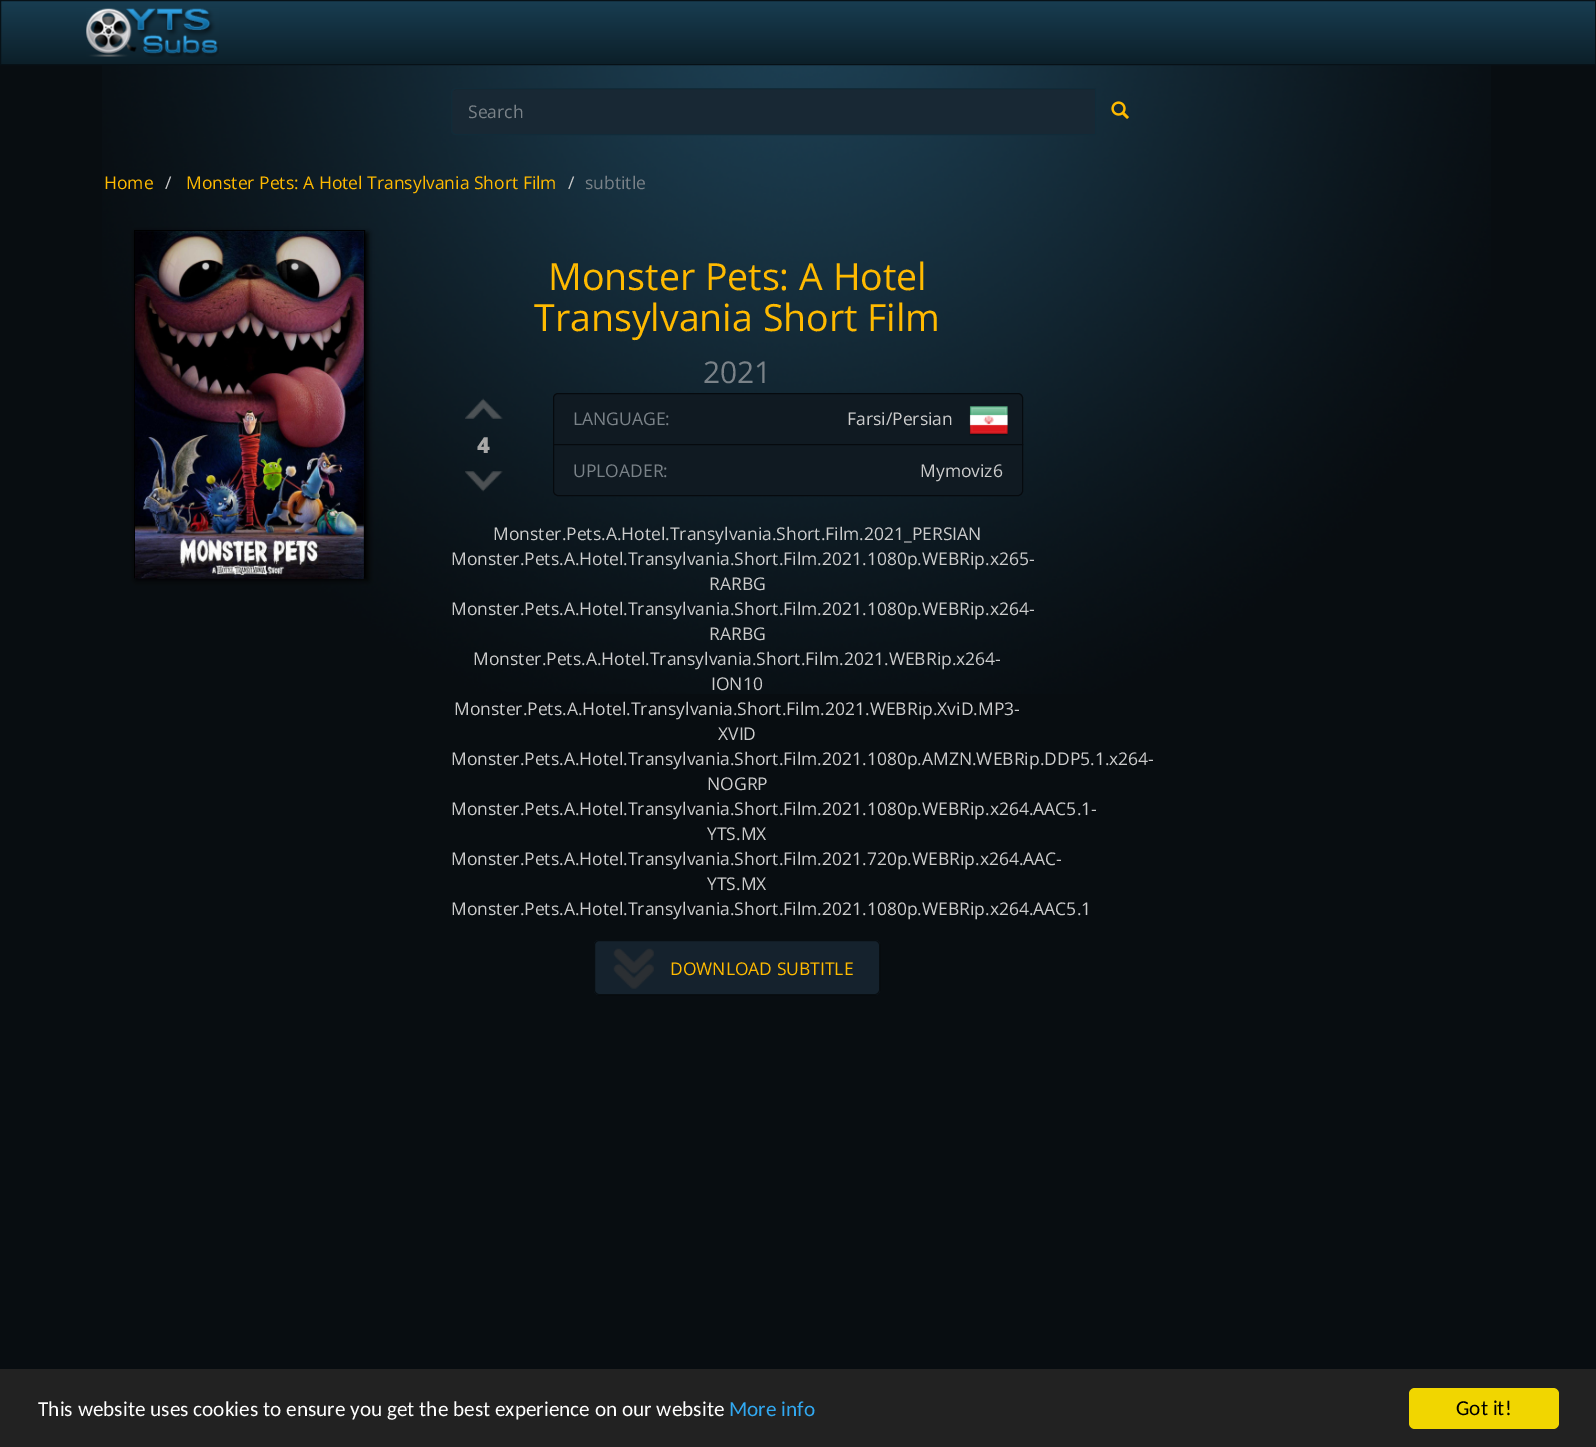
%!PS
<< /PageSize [1596 1447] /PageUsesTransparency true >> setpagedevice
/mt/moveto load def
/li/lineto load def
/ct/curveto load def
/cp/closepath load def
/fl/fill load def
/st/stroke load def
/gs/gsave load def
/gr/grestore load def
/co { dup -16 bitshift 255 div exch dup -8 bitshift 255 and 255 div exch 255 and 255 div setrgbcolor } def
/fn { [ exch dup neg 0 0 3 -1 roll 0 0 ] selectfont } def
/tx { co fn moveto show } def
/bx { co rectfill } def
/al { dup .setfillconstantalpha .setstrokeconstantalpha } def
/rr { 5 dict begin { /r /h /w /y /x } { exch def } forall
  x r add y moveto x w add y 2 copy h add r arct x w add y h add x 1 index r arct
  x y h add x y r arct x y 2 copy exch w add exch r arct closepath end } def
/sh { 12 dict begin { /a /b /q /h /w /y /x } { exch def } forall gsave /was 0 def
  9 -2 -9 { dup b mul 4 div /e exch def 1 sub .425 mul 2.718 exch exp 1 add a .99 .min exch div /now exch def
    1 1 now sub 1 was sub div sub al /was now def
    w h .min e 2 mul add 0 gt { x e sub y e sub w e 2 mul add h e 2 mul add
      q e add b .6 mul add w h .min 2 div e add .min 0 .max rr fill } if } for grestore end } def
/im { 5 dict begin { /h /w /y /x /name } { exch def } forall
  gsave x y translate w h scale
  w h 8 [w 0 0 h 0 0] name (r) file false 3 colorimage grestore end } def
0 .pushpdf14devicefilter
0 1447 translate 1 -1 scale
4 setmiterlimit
0 0 1596 1447 16#080D11 bx
(media/1.raw) 102 65 1389 629 im
gs 1 1 mt 1595 1 li 1595 64 li 1 64 li cp clip newpath
<< /ShadingType 2 /ColorSpace /DeviceRGB /Coords [798 1.2 798 64] /Extend [true true] /Function << /FunctionType 3 /Domain [0 1] /Functions [<< /FunctionType 2 /Domain [0 1] /C0 [.094 .239 .318] /C1 [.067 .169 .224] /N 1 >> << /FunctionType 2 /Domain [0 1] /C0 [.067 .169 .224] /C1 [.047 .122 .161] /N 1 >>] /Bounds [.6] /Encode [0 1 0 1] >> >> shfill gr
16#071117 co
.5 .5 1595 64 rectstroke
(media/2.raw) 86 8 133 49 im
16#182834 co
456 88 mt 1096 88 li 1096 135 li 456 135 li 453 135 451 133 451 130 ct 451 93 li 451 90 453 88 456 88 ct cp fl
16#162530 co
456 90 mt 1095 90 li 1095 89 li 457 89 li 456 89 454 90 454 91 ct cp fl
16#112B39 co
456 88.5 mt 1095.5 88.5 li 1095.5 134.5 li 456 134.5 li 453.5 134.5 451.5 132.5 451.5 130 ct 451.5 93 li 451.5 90.5 453.5 88.5 456 88.5 ct cp st
(media/3.raw) 1111 101 18 18 im
16#000000 co
136 233 232 347 0 3 1 sh
134.5 230.5 230 347 rectstroke
(media/4.raw) 135 231 229 348 im
(media/5.raw) 465 398 38 21 im
(media/6.raw) 465 471 38 21 im
16#101A22 co
558 393 mt 1018 393 li 1021 393 1023 395 1023 398 ct 1023 445 li 553 445 li 553 398 li 553 395 555 393 558 393 ct cp fl
0.6 al
16#000000 co
558 393.5 mt 1018 393.5 li 1020.5 393.5 1022.5 395.5 1022.5 398 ct 1022.5 444.5 li 553.5 444.5 li 553.5 398 li 553.5 395.5 555.5 393.5 558 393.5 ct cp st
1 al
(media/7.raw) 969 406 39 30 im
16#101A22 co
553.5 444.5 mt 1022.5 444.5 li 1022.5 491 li 1022.5 493.5 1020.5 495.5 1018 495.5 ct 558 495.5 li 555.5 495.5 553.5 493.5 553.5 491 ct cp gs fl gr
16#060A0E co
st
16#15222D co
594 940 286 55 5 rr fl
0.6 al
16#000000 co
594.5 940.5 285 54 4.5 rr st
1 al
(media/8.raw) 613 948 41 41 im
0 1369 1596 78 16#222222 bx
16#F1D600 co
1409 1388 150 41 6 rr fl
(Search) 468 118 /OpenSans-Regular 17.5 16#7A8288 tx
(Home) 104 189 /OpenSans-Regular 17.5 16#FFBA00 tx
(/) 165 189 /OpenSans-Regular 17.5 16#CCCCCC tx
(Monster Pets: A Hotel Transylvania Short Film) 186 189 /OpenSans-Regular 17.5 16#FFBA00 tx
(/) 568 189 /OpenSans-Regular 17.5 16#CCCCCC tx
(subtitle) 585 189 /OpenSans-Regular 17.5 16#7A8288 tx
(Monster Pets: A Hotel) 548 290 /OpenSans-Regular 37.5 16#FFBA00 tx
(Transylvania Short Film) 534 331 /OpenSans-Regular 37.5 16#FFBA00 tx
(2021) 703 383 /OpenSans-Regular 30 16#7A8288 tx
(4) 477 453 /OpenSans-ExtraBold 22 16#A8A8A8 tx
(LANGUAGE:) 573 425 /OpenSans-Regular 17.5 16#7A8288 tx
(Farsi/Persian) 847 425 /OpenSans-Regular 17.5 16#CCCCCC tx
(UPLOADER:) 573 477 /OpenSans-Regular 17.5 16#7A8288 tx
(Mymoviz6) 920 477 /OpenSans-Regular 17.5 16#CCCCCC tx
(Monster.Pets.A.Hotel.Transylvania.Short.Film.2021_PERSIAN) 493 540 /OpenSans-Regular 17.5 16#CCCCCC tx
(Monster.Pets.A.Hotel.Transylvania.Short.Film.2021.1080p.WEBRip.x265-) 451 565 /OpenSans-Regular 17.5 16#CCCCCC tx
(RARBG) 709 590 /OpenSans-Regular 17.5 16#CCCCCC tx
(Monster.Pets.A.Hotel.Transylvania.Short.Film.2021.1080p.WEBRip.x264-) 451 615 /OpenSans-Regular 17.5 16#CCCCCC tx
(RARBG) 709 640 /OpenSans-Regular 17.5 16#CCCCCC tx
(Monster.Pets.A.Hotel.Transylvania.Short.Film.2021.WEBRip.x264-) 473 665 /OpenSans-Regular 17.5 16#CCCCCC tx
(ION10) 711 690 /OpenSans-Regular 17.5 16#CCCCCC tx
(Monster.Pets.A.Hotel.Transylvania.Short.Film.2021.WEBRip.XviD.MP3-) 454 715 /OpenSans-Regular 17.5 16#CCCCCC tx
(XVID) 718 740 /OpenSans-Regular 17.5 16#CCCCCC tx
(Monster.Pets.A.Hotel.Transylvania.Short.Film.2021.1080p.AMZN.WEBRip.DDP5.1.x264-) 451 765 /OpenSans-Regular 17.5 16#CCCCCC tx
(NOGRP) 707 790 /OpenSans-Regular 17.5 16#CCCCCC tx
(Monster.Pets.A.Hotel.Transylvania.Short.Film.2021.1080p.WEBRip.x264.AAC5.1-) 451 815 /OpenSans-Regular 17.5 16#CCCCCC tx
(YTS.MX) 707 840 /OpenSans-Regular 17.5 16#CCCCCC tx
(Monster.Pets.A.Hotel.Transylvania.Short.Film.2021.720p.WEBRip.x264.AAC-) 451 865 /OpenSans-Regular 17.5 16#CCCCCC tx
(YTS.MX) 707 890 /OpenSans-Regular 17.5 16#CCCCCC tx
(Monster.Pets.A.Hotel.Transylvania.Short.Film.2021.1080p.WEBRip.x264.AAC5.1) 451 915 /OpenSans-Regular 17.5 16#CCCCCC tx
(DOWNLOAD SUBTITLE) 670 975 /OpenSans-Regular 17.5 16#FFBA00 tx
(This website uses cookies to ensure you get the best experience on our website) 38 1416 /Carlito-Regular 21.25 16#FFFFFF tx
(More info) 729 1416 /Carlito-Regular 21.25 16#31A8F0 tx
(Got it!) 1456 1415 /Carlito-Regular 21.25 16#000000 tx
.poppdf14devicefilter showpage
